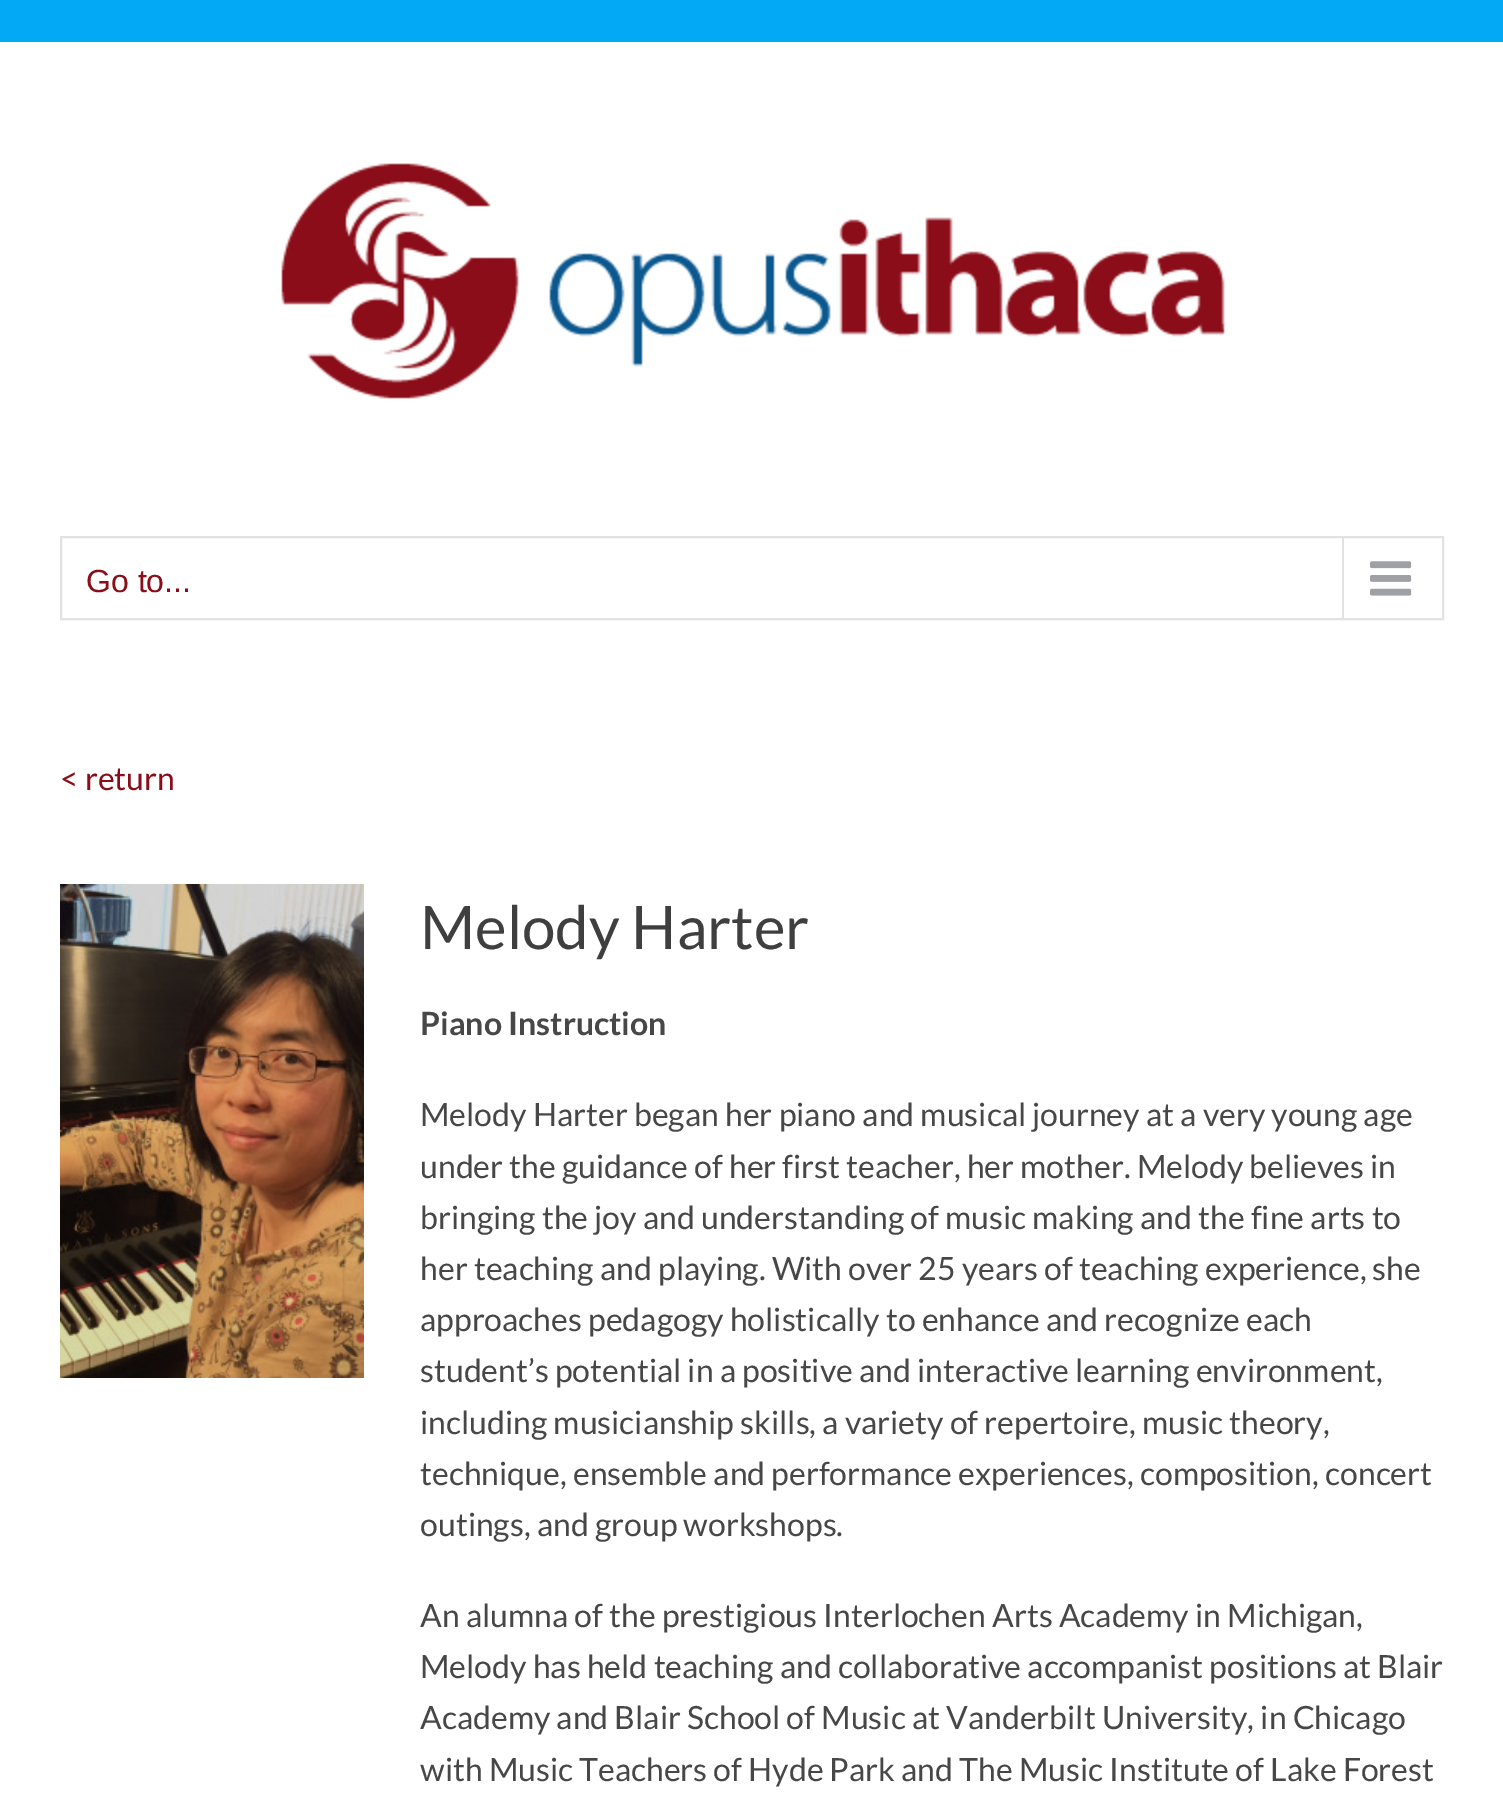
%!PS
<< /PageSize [1503 1796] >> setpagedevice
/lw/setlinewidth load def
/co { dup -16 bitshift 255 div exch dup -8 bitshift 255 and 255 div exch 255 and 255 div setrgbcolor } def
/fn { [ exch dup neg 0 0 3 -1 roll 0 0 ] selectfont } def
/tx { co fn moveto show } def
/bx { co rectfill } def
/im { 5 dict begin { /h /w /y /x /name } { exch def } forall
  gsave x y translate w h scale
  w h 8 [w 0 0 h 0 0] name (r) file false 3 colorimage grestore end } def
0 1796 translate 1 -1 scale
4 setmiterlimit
0 0 1503 1796 16#FFFFFF bx
0 0 1503 42 16#03A9F4 bx
(media/1.raw) 281 163 944 236 im
16#E2E2E2 co
2 lw
61 537 1382 82 rectstroke
1342 538 2 80 16#E2E2E2 bx
(media/2.raw) 1370 561 42 35 im
(media/3.raw) 60 884 304 494 im
(Go to...) 86 592 /LiberationSans-Regular 32 16#8B0D19 tx
(< return) 60 790 /Lato-Regular 32 16#8B0D19 tx
(Melody Harter) 420 949 /Lato-Regular 60 16#3F3F3F tx
(Piano Instruction) 420 1035 /Lato-Bold 32 16#474747 tx
(Melody Harter began her piano and musical journey at a very young age) 420 1126 /Lato-Regular 32 16#474747 tx
(under the guidance of her first teacher, her mother. Melody believes in) 420 1178 /Lato-Regular 32 16#474747 tx
(bringing the joy and understanding of music making and the fine arts to) 420 1229 /Lato-Regular 32 16#474747 tx
(her teaching and playing. With over 25 years of teaching experience, she) 420 1280 /Lato-Regular 32 16#474747 tx
(approaches pedagogy holistically to enhance and recognize each) 420 1331 /Lato-Regular 32 16#474747 tx
(student’s potential in a positive and interactive learning environment,) 420 1382 /Lato-Regular 32 16#474747 tx
(including musicianship skills, a variety of repertoire, music theory,) 420 1434 /Lato-Regular 32 16#474747 tx
(technique, ensemble and performance experiences, composition, concert) 420 1485 /Lato-Regular 32 16#474747 tx
(outings, and group workshops.) 420 1536 /Lato-Regular 32 16#474747 tx
(An alumna of the prestigious Interlochen Arts Academy in Michigan,) 420 1627 /Lato-Regular 32 16#474747 tx
(Melody has held teaching and collaborative accompanist positions at Blair) 420 1678 /Lato-Regular 32 16#474747 tx
(Academy and Blair School of Music at Vanderbilt University, in Chicago) 420 1729 /Lato-Regular 32 16#474747 tx
(with Music Teachers of Hyde Park and The Music Institute of Lake Forest) 420 1781 /Lato-Regular 32 16#474747 tx
showpage
